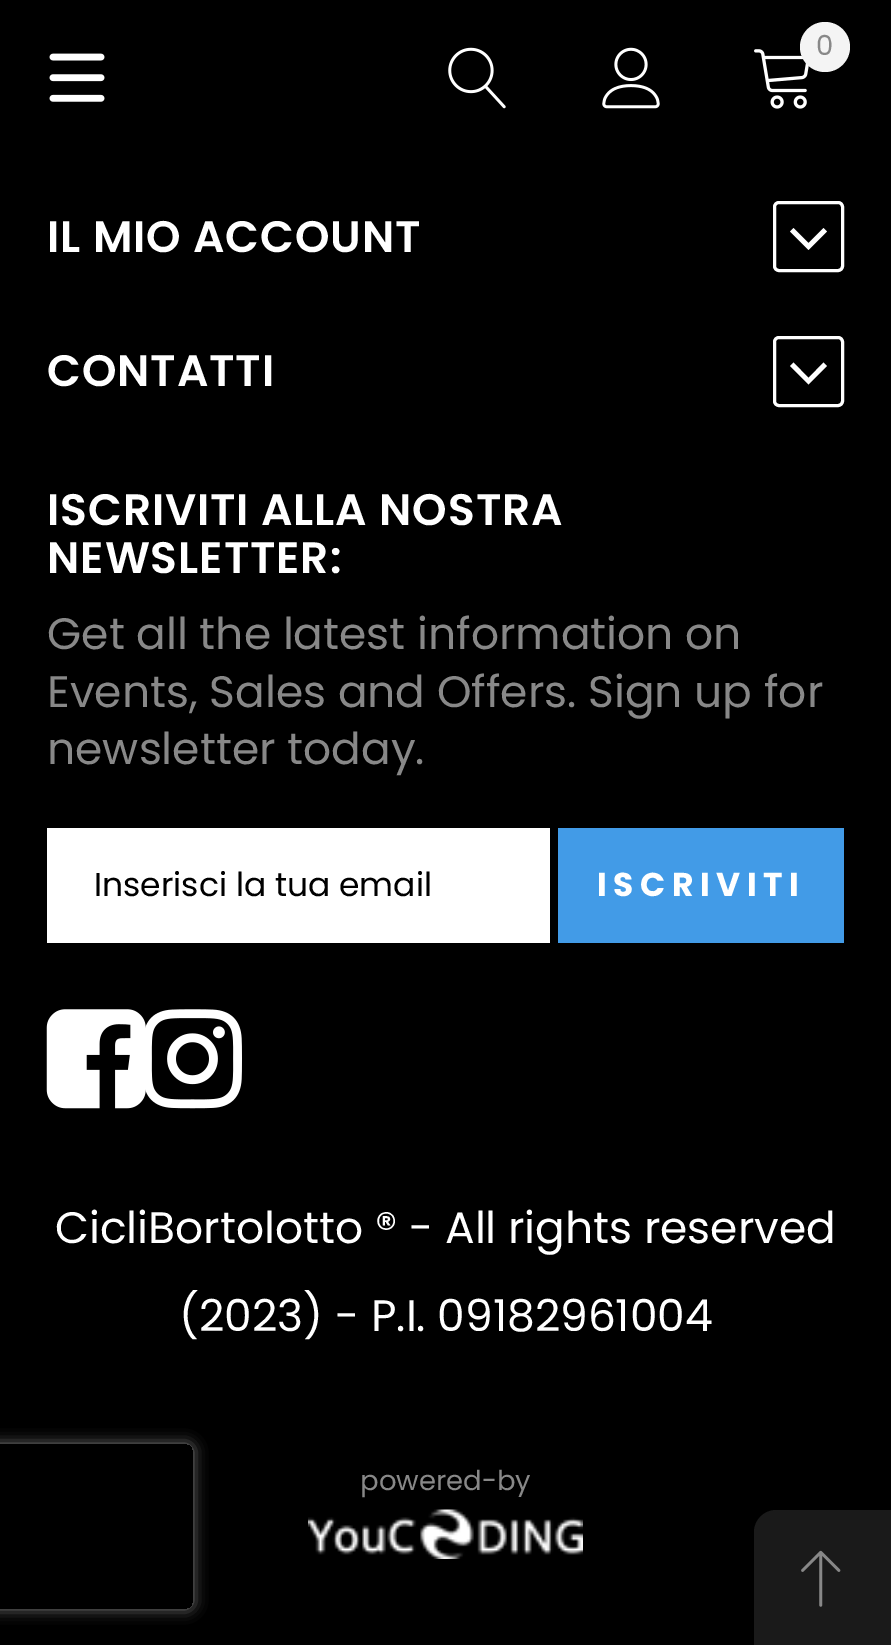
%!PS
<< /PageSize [891 1645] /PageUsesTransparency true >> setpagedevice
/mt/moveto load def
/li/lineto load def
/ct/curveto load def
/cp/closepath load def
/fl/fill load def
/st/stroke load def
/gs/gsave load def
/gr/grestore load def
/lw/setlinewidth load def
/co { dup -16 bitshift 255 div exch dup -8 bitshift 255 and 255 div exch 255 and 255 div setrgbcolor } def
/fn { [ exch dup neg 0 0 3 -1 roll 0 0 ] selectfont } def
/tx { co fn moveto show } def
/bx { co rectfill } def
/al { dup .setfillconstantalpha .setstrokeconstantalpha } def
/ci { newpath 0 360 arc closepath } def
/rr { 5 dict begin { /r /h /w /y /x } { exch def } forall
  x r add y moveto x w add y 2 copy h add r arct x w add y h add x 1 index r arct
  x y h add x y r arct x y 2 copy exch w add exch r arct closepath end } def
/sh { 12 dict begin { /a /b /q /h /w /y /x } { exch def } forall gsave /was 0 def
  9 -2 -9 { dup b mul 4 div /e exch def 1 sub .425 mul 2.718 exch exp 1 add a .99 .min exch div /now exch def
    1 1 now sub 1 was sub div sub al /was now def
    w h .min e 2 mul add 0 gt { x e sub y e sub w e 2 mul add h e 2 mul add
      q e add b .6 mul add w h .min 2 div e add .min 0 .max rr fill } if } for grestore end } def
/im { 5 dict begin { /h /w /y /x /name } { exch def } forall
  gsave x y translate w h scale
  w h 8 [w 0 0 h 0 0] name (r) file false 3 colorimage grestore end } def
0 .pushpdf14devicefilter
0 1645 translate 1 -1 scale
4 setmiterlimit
0 0 891 1645 16#000000 bx
(media/1.raw) 754 49 55 60 im
16#F4F4F4 co
825 47 25 ci fl
(media/2.raw) 49 53 56 49 im
(media/3.raw) 448 47 58 62 im
(media/4.raw) 602 47 58 62 im
16#FFFFFF co
3 lw
774.5 202.5 68 68 4.5 rr st
808.5 250 mt 790 231.5 li 793.5 228 li 808.5 243 li 823.5 228 li 827 231.5 li cp fl
774.5 337.5 68 68 4.5 rr st
808.5 384.5 mt 790 366 li 793.5 362.5 li 808.5 378 li 823.5 362.5 li 827 366 li cp fl
47 828 503 115 16#FFFFFF bx
558 828 286 115 16#429BE7 bx
(media/5.raw) 46 1009 100 100 im
(media/6.raw) 145 1009 97 100 im
(media/7.raw) 308 1509 275 50 im
16#1A1A1A co
776 1510 mt 891 1510 li 891 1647 li 754 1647 li 754 1532 li 754 1520 764 1510 776 1510 ct cp fl
(media/8.raw) 801 1550 40 57 im
gs
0 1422 mt 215 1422 li 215 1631 li 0 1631 li cp -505 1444 mt 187 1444 li 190.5 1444 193 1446.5 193 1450 ct 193 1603 li 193 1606.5 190.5 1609 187 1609 ct -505 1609 li -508.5 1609 -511 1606.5 -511 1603 ct -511 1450 li -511 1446.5 -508.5 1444 -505 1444 ct cp eoclip newpath
16#808080 co
-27 1444 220 165 6 7 1 sh
gr
(0) 816 55 /Poppins-Regular 27.5 16#888888 tx
/Poppins-SemiBold 44 fn
16#FFFFFF co
47 252 mt .9 0 (IL MIO ACCOUNT) ashow
47 386 mt .9 0 (CONTATTI) ashow
47 525 mt .9 0 (ISCRIVITI ALLA NOSTRA) ashow
47 573 mt .9 0 (NEWSLETTER:) ashow
(Get all the latest information on) 47 649 /Poppins-Regular 44 16#888888 tx
(Events, Sales and Offers. Sign up for) 47 707 /Poppins-Regular 44 16#888888 tx
(newsletter today.) 47 764 /Poppins-Regular 44 16#888888 tx
(Inserisci la tua email) 94 896 /Poppins-Regular 33 16#000000 tx
/Poppins-Bold 33 fn
16#FFFFFF co
597 896 mt 6.5 0 (ISCRIVITI) ashow
(CicliBortolotto ® - All rights reserved) 55 1243 /Poppins-Regular 44 16#FFFFFF tx
(\(2023\) - P.I. 09182961004) 179 1331 /Poppins-Regular 44 16#FFFFFF tx
(powered-by) 360 1490 /Poppins-Regular 27.5 16#888888 tx
.poppdf14devicefilter showpage
